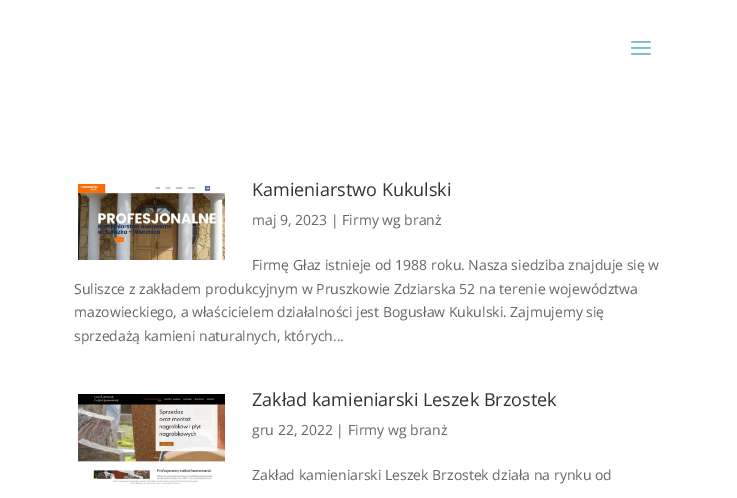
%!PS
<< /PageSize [737 498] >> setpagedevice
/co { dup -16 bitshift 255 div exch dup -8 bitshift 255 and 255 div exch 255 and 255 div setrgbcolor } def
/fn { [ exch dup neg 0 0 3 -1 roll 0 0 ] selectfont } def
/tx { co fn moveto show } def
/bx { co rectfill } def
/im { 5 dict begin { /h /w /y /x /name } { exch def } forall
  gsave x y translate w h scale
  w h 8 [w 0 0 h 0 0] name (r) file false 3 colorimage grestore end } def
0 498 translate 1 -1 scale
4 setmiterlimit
0 0 737 498 16#FFFFFF bx
(media/1.raw) 631 40 20 15 im
(media/2.raw) 78 184 147 76 im
(media/3.raw) 78 394 147 90 im
(Kamieniarstwo Kukulski) 252 196 /OpenSans-Regular 18 16#333333 tx
(maj 9, 2023 | Firmy wg branż) 252 225 /OpenSans-Regular 14 16#666666 tx
(Firmę Głaz istnieje od 1988 roku. Nasza siedziba znajduje się w) 252 270 /OpenSans-Regular 14 16#666666 tx
(Suliszce z zakładem produkcyjnym w Pruszkowie Zdziarska 52 na terenie województwa) 74 294 /OpenSans-Regular 14 16#666666 tx
(mazowieckiego, a właścicielem działalności jest Bogusław Kukulski. Zajmujemy się) 74 317 /OpenSans-Regular 14 16#666666 tx
(sprzedażą kamieni naturalnych, których...) 74 341 /OpenSans-Regular 14 16#666666 tx
(Zakład kamieniarski Leszek Brzostek) 252 406 /OpenSans-Regular 18 16#333333 tx
(gru 22, 2022 | Firmy wg branż) 252 435 /OpenSans-Regular 14 16#666666 tx
(Zakład kamieniarski Leszek Brzostek działa na rynku od) 252 480 /OpenSans-Regular 14 16#666666 tx
showpage
